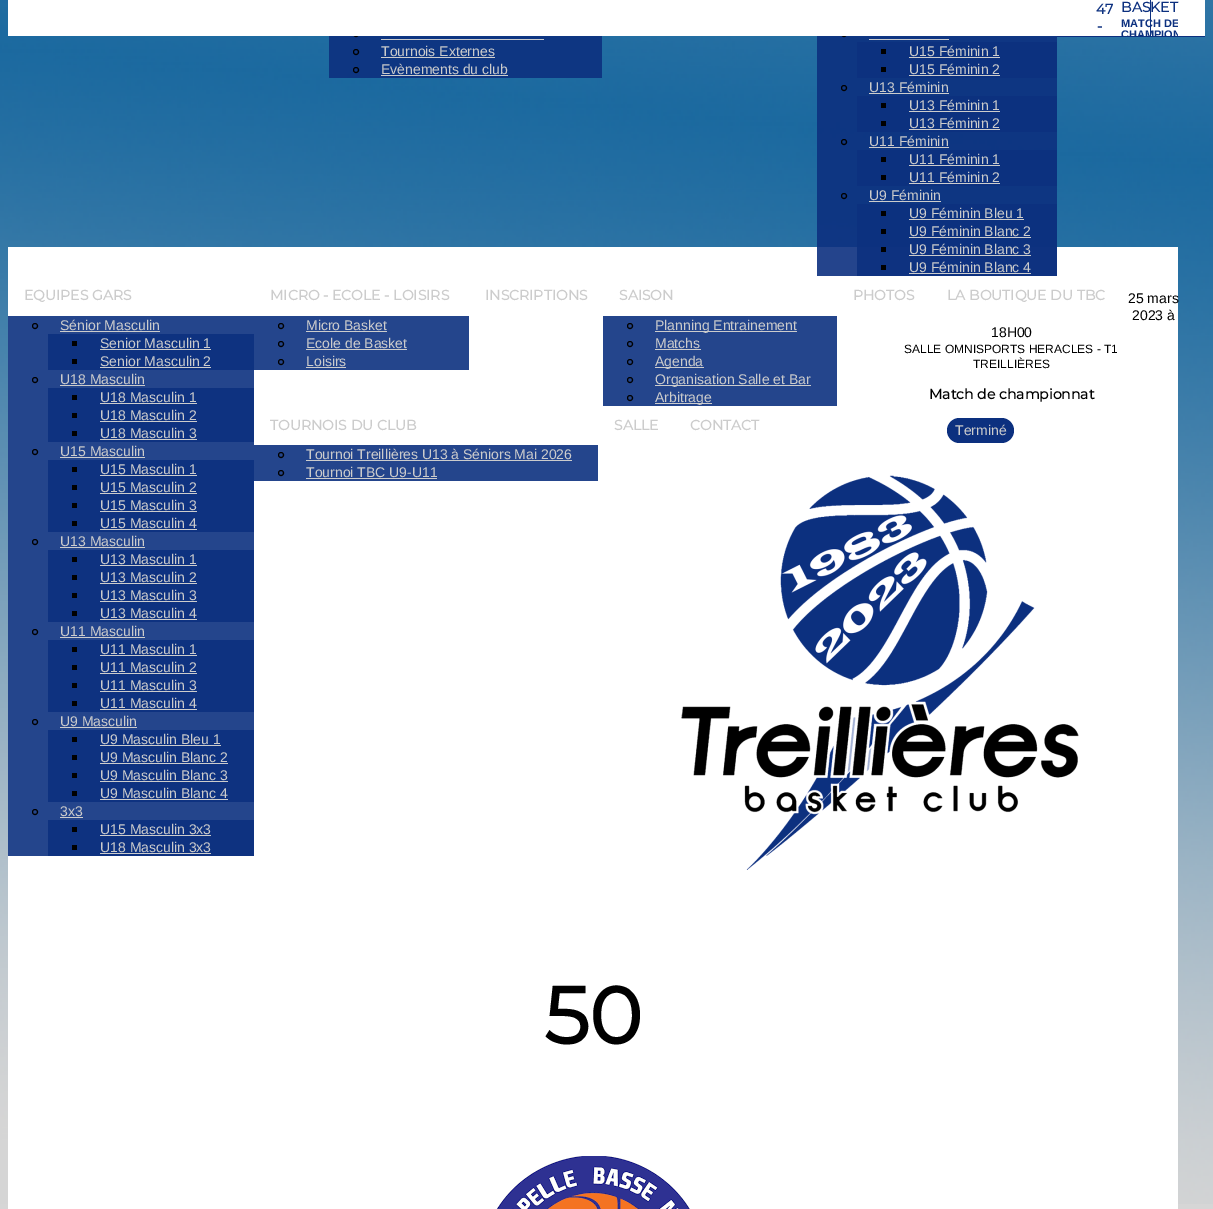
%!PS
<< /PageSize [1213 1209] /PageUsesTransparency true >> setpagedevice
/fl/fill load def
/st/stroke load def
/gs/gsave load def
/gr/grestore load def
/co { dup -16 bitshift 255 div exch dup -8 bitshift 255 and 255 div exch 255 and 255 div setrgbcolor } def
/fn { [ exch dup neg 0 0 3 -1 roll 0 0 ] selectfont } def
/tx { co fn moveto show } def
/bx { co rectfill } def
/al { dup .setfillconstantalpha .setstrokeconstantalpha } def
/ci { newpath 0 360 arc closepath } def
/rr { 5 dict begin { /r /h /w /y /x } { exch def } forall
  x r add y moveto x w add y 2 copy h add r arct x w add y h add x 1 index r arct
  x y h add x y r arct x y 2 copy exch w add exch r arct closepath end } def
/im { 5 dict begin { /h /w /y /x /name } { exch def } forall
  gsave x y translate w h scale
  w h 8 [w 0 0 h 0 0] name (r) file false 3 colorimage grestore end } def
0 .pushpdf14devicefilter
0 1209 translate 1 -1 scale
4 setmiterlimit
0 0 1213 1209 16#D6D6D6 bx
(media/1.raw) 0 0 1213 1204 im
0.9 al
329 36 273 42 16#0C307F bx
1 al
16#000000 co
356 34 2.5 ci st
8 247 1170 962 16#FFFFFF bx
0.9 al
817 36 240 240 16#0C307F bx
1 al
16#000000 co
844 34 2.5 ci st
8 0 1197 36 16#FFFFFF bx
1150 0 1 36 16#0C307F bx
1057 36 148 1 16#0C307F bx
381 39 163 1 16#CCCCCC bx
16#000000 co
356 52 2.5 ci st
381 57 114 1 16#CCCCCC bx
16#000000 co
356 70 2.5 ci st
381 75 127 1 16#CCCCCC bx
869 39 80 1 16#CCCCCC bx
857 42 200 36 16#0C317F bx
881 49 5 5 16#000000 bx
909 57 91 1 16#CCCCCC bx
881 67 5 5 16#000000 bx
909 75 91 1 16#CCCCCC bx
16#000000 co
844 88 2.5 ci st
869 93 80 1 16#CCCCCC bx
857 96 200 36 16#0C317F bx
881 103 5 5 16#000000 bx
909 111 91 1 16#CCCCCC bx
881 121 5 5 16#000000 bx
909 129 91 1 16#CCCCCC bx
16#000000 co
844 142 2.5 ci st
869 147 80 1 16#CCCCCC bx
857 150 200 36 16#0C317F bx
881 157 5 5 16#000000 bx
909 165 91 1 16#CCCCCC bx
881 175 5 5 16#000000 bx
909 183 91 1 16#CCCCCC bx
16#000000 co
844 196 2.5 ci st
869 201 72 1 16#CCCCCC bx
0.9 al
857 204 200 72 16#0C307F bx
1 al
881 211 5 5 16#000000 bx
909 219 115 1 16#CCCCCC bx
881 229 5 5 16#000000 bx
909 237 122 1 16#CCCCCC bx
881 247 5 5 16#000000 bx
909 255 122 1 16#CCCCCC bx
881 265 5 5 16#000000 bx
909 273 122 1 16#CCCCCC bx
8 316 246 540 16#24458C bx
16#000000 co
35 326 2.5 ci st
60 331 100 1 16#CCCCCC bx
48 334 206 36 16#0E3280 bx
72 341 5 5 16#000000 bx
100 349 111 1 16#CCCCCC bx
72 359 5 5 16#000000 bx
100 367 111 1 16#CCCCCC bx
16#000000 co
35 380 2.5 ci st
60 385 85 1 16#CCCCCC bx
48 388 206 54 16#0E3280 bx
72 395 5 5 16#000000 bx
100 403 97 1 16#CCCCCC bx
72 413 5 5 16#000000 bx
100 421 97 1 16#CCCCCC bx
72 431 5 5 16#000000 bx
100 439 97 1 16#CCCCCC bx
16#000000 co
35 452 2.5 ci st
60 457 85 1 16#CCCCCC bx
48 460 206 72 16#0E3280 bx
72 467 5 5 16#000000 bx
100 475 97 1 16#CCCCCC bx
72 485 5 5 16#000000 bx
100 493 97 1 16#CCCCCC bx
72 503 5 5 16#000000 bx
100 511 97 1 16#CCCCCC bx
72 521 5 5 16#000000 bx
100 529 97 1 16#CCCCCC bx
16#000000 co
35 542 2.5 ci st
60 547 85 1 16#CCCCCC bx
48 550 206 72 16#0E3280 bx
72 557 5 5 16#000000 bx
100 565 97 1 16#CCCCCC bx
72 575 5 5 16#000000 bx
100 583 97 1 16#CCCCCC bx
72 593 5 5 16#000000 bx
100 601 97 1 16#CCCCCC bx
72 611 5 5 16#000000 bx
100 619 97 1 16#CCCCCC bx
16#000000 co
35 632 2.5 ci st
60 637 85 1 16#CCCCCC bx
48 640 206 72 16#0E3280 bx
72 647 5 5 16#000000 bx
100 655 97 1 16#CCCCCC bx
72 665 5 5 16#000000 bx
100 673 97 1 16#CCCCCC bx
72 683 5 5 16#000000 bx
100 691 97 1 16#CCCCCC bx
72 701 5 5 16#000000 bx
100 709 97 1 16#CCCCCC bx
16#000000 co
35 722 2.5 ci st
60 727 77 1 16#CCCCCC bx
48 730 206 72 16#0E3280 bx
72 737 5 5 16#000000 bx
100 745 121 1 16#CCCCCC bx
72 755 5 5 16#000000 bx
100 763 128 1 16#CCCCCC bx
72 773 5 5 16#000000 bx
100 781 128 1 16#CCCCCC bx
72 791 5 5 16#000000 bx
100 799 128 1 16#CCCCCC bx
16#000000 co
35 812 2.5 ci st
60 817 23 1 16#CCCCCC bx
48 820 206 36 16#0E3280 bx
72 827 5 5 16#000000 bx
100 835 111 1 16#CCCCCC bx
72 845 5 5 16#000000 bx
100 853 111 1 16#CCCCCC bx
254 316 215 54 16#24458C bx
16#000000 co
281 326 2.5 ci st
306 331 81 1 16#CCCCCC bx
16#000000 co
281 344 2.5 ci st
306 349 101 1 16#CCCCCC bx
16#000000 co
281 362 2.5 ci st
306 367 40 1 16#CCCCCC bx
603 316 234 90 16#24458C bx
16#000000 co
630 326 2.5 ci st
655 331 142 1 16#CCCCCC bx
16#000000 co
630 344 2.5 ci st
655 349 46 1 16#CCCCCC bx
16#000000 co
630 362 2.5 ci st
655 367 49 1 16#CCCCCC bx
16#000000 co
630 380 2.5 ci st
655 385 156 1 16#CCCCCC bx
16#000000 co
630 398 2.5 ci st
655 403 57 1 16#CCCCCC bx
254 445 344 36 16#24458C bx
16#000000 co
281 455 2.5 ci st
306 460 266 1 16#CCCCCC bx
16#000000 co
281 473 2.5 ci st
306 478 131 1 16#CCCCCC bx
16#0C307F co
947 418 67 25 12.5 rr fl
(media/2.raw) 681 475 398 395 im
(media/3.raw) 497 1156 193 53 im
(47) 1096 14 /Montserrat-Bold 14 16#0C307F tx
(-) 1097 31 /Montserrat-Bold 14 16#0C307F tx
(BASKET) 1121 12 /Montserrat-Bold 14 16#0C307F tx
gs
1085 0 93 36 rectclip
(MATCH DE) 1121 27 /LiberationSans-Bold 11 16#0C307F tx
(CHAMPION) 1121 38 /LiberationSans-Bold 11 16#0C307F tx
gr
(Tournois Externes) 381 56 /LiberationSans-Regular 14 16#CCCCCC tx
(Evènements du club) 381 74 /LiberationSans-Regular 14 16#CCCCCC tx
(U15 Féminin 1) 909 56 /LiberationSans-Regular 14 16#CCCCCC tx
(U15 Féminin 2) 909 74 /LiberationSans-Regular 14 16#CCCCCC tx
(U13 Féminin) 869 92 /LiberationSans-Regular 14 16#CCCCCC tx
(U13 Féminin 1) 909 110 /LiberationSans-Regular 14 16#CCCCCC tx
(U13 Féminin 2) 909 128 /LiberationSans-Regular 14 16#CCCCCC tx
(U11 Féminin) 869 146 /LiberationSans-Regular 14 16#CCCCCC tx
(U11 Féminin 1) 909 164 /LiberationSans-Regular 14 16#CCCCCC tx
(U11 Féminin 2) 909 182 /LiberationSans-Regular 14 16#CCCCCC tx
(U9 Féminin) 869 200 /LiberationSans-Regular 14 16#CCCCCC tx
(U9 Féminin Bleu 1) 909 218 /LiberationSans-Regular 14 16#CCCCCC tx
(U9 Féminin Blanc 2) 909 236 /LiberationSans-Regular 14 16#CCCCCC tx
(U9 Féminin Blanc 3) 909 254 /LiberationSans-Regular 14 16#CCCCCC tx
(U9 Féminin Blanc 4) 909 272 /LiberationSans-Regular 14 16#CCCCCC tx
(EQUIPES GARS) 24 300 /Montserrat-Bold 14 16#CCCCCC tx
(Sénior Masculin) 60 330 /LiberationSans-Regular 14 16#CCCCCC tx
(Senior Masculin 1) 100 348 /LiberationSans-Regular 14 16#CCCCCC tx
(Senior Masculin 2) 100 366 /LiberationSans-Regular 14 16#CCCCCC tx
(U18 Masculin) 60 384 /LiberationSans-Regular 14 16#CCCCCC tx
(U18 Masculin 1) 100 402 /LiberationSans-Regular 14 16#CCCCCC tx
(U18 Masculin 2) 100 420 /LiberationSans-Regular 14 16#CCCCCC tx
(U18 Masculin 3) 100 438 /LiberationSans-Regular 14 16#CCCCCC tx
(U15 Masculin) 60 456 /LiberationSans-Regular 14 16#CCCCCC tx
(U15 Masculin 1) 100 474 /LiberationSans-Regular 14 16#CCCCCC tx
(U15 Masculin 2) 100 492 /LiberationSans-Regular 14 16#CCCCCC tx
(U15 Masculin 3) 100 510 /LiberationSans-Regular 14 16#CCCCCC tx
(U15 Masculin 4) 100 528 /LiberationSans-Regular 14 16#CCCCCC tx
(U13 Masculin) 60 546 /LiberationSans-Regular 14 16#CCCCCC tx
(U13 Masculin 1) 100 564 /LiberationSans-Regular 14 16#CCCCCC tx
(U13 Masculin 2) 100 582 /LiberationSans-Regular 14 16#CCCCCC tx
(U13 Masculin 3) 100 600 /LiberationSans-Regular 14 16#CCCCCC tx
(U13 Masculin 4) 100 618 /LiberationSans-Regular 14 16#CCCCCC tx
(U11 Masculin) 60 636 /LiberationSans-Regular 14 16#CCCCCC tx
(U11 Masculin 1) 100 654 /LiberationSans-Regular 14 16#CCCCCC tx
(U11 Masculin 2) 100 672 /LiberationSans-Regular 14 16#CCCCCC tx
(U11 Masculin 3) 100 690 /LiberationSans-Regular 14 16#CCCCCC tx
(U11 Masculin 4) 100 708 /LiberationSans-Regular 14 16#CCCCCC tx
(U9 Masculin) 60 726 /LiberationSans-Regular 14 16#CCCCCC tx
(U9 Masculin Bleu 1) 100 744 /LiberationSans-Regular 14 16#CCCCCC tx
(U9 Masculin Blanc 2) 100 762 /LiberationSans-Regular 14 16#CCCCCC tx
(U9 Masculin Blanc 3) 100 780 /LiberationSans-Regular 14 16#CCCCCC tx
(U9 Masculin Blanc 4) 100 798 /LiberationSans-Regular 14 16#CCCCCC tx
(3x3) 60 816 /LiberationSans-Regular 14 16#CCCCCC tx
(U15 Masculin 3x3) 100 834 /LiberationSans-Regular 14 16#CCCCCC tx
(U18 Masculin 3x3) 100 852 /LiberationSans-Regular 14 16#CCCCCC tx
(MICRO - ECOLE - LOISIRS) 270 300 /Montserrat-Bold 14 16#CCCCCC tx
(Micro Basket) 306 330 /LiberationSans-Regular 14 16#CCCCCC tx
(Ecole de Basket) 306 348 /LiberationSans-Regular 14 16#CCCCCC tx
(Loisirs) 306 366 /LiberationSans-Regular 14 16#CCCCCC tx
(INSCRIPTIONS) 485 300 /Montserrat-Bold 14 16#CCCCCC tx
(SAISON) 619 300 /Montserrat-Bold 14 16#CCCCCC tx
(Planning Entrainement) 655 330 /LiberationSans-Regular 14 16#CCCCCC tx
(Matchs) 655 348 /LiberationSans-Regular 14 16#CCCCCC tx
(Agenda) 655 366 /LiberationSans-Regular 14 16#CCCCCC tx
(Organisation Salle et Bar) 655 384 /LiberationSans-Regular 14 16#CCCCCC tx
(Arbitrage) 655 402 /LiberationSans-Regular 14 16#CCCCCC tx
(PHOTOS) 853 300 /Montserrat-Bold 14 16#CCCCCC tx
(LA BOUTIQUE DU TBC) 947 300 /Montserrat-Bold 14 16#CCCCCC tx
(TOURNOIS DU CLUB) 270 430 /Montserrat-Bold 14 16#CCCCCC tx
(Tournoi Treillières U13 à Séniors Mai 2026) 306 459 /LiberationSans-Regular 14 16#CCCCCC tx
(Tournoi TBC U9-U11) 306 477 /LiberationSans-Regular 14 16#CCCCCC tx
(SALLE) 614 430 /Montserrat-Bold 14 16#CCCCCC tx
(CONTACT) 690 430 /Montserrat-Bold 14 16#CCCCCC tx
(25 mars) 1128 303 /LiberationSans-Regular 14 16#000000 tx
(2023 à) 1132 320 /LiberationSans-Regular 14 16#000000 tx
(18H00) 991 337 /LiberationSans-Regular 14 16#000000 tx
(SALLE OMNISPORTS HERACLES - T1) 904 353 /LiberationSans-Regular 12 16#000000 tx
(TREILLIÈRES) 973 368 /LiberationSans-Regular 12 16#000000 tx
(Match de championnat) 929 399 /Montserrat-Bold 14 16#000000 tx
(Terminé) 955 435 /LiberationSans-Regular 14 16#CCCCCC tx
(50) 544 1044 /Montserrat-Bold 80 16#000000 tx
.poppdf14devicefilter showpage
